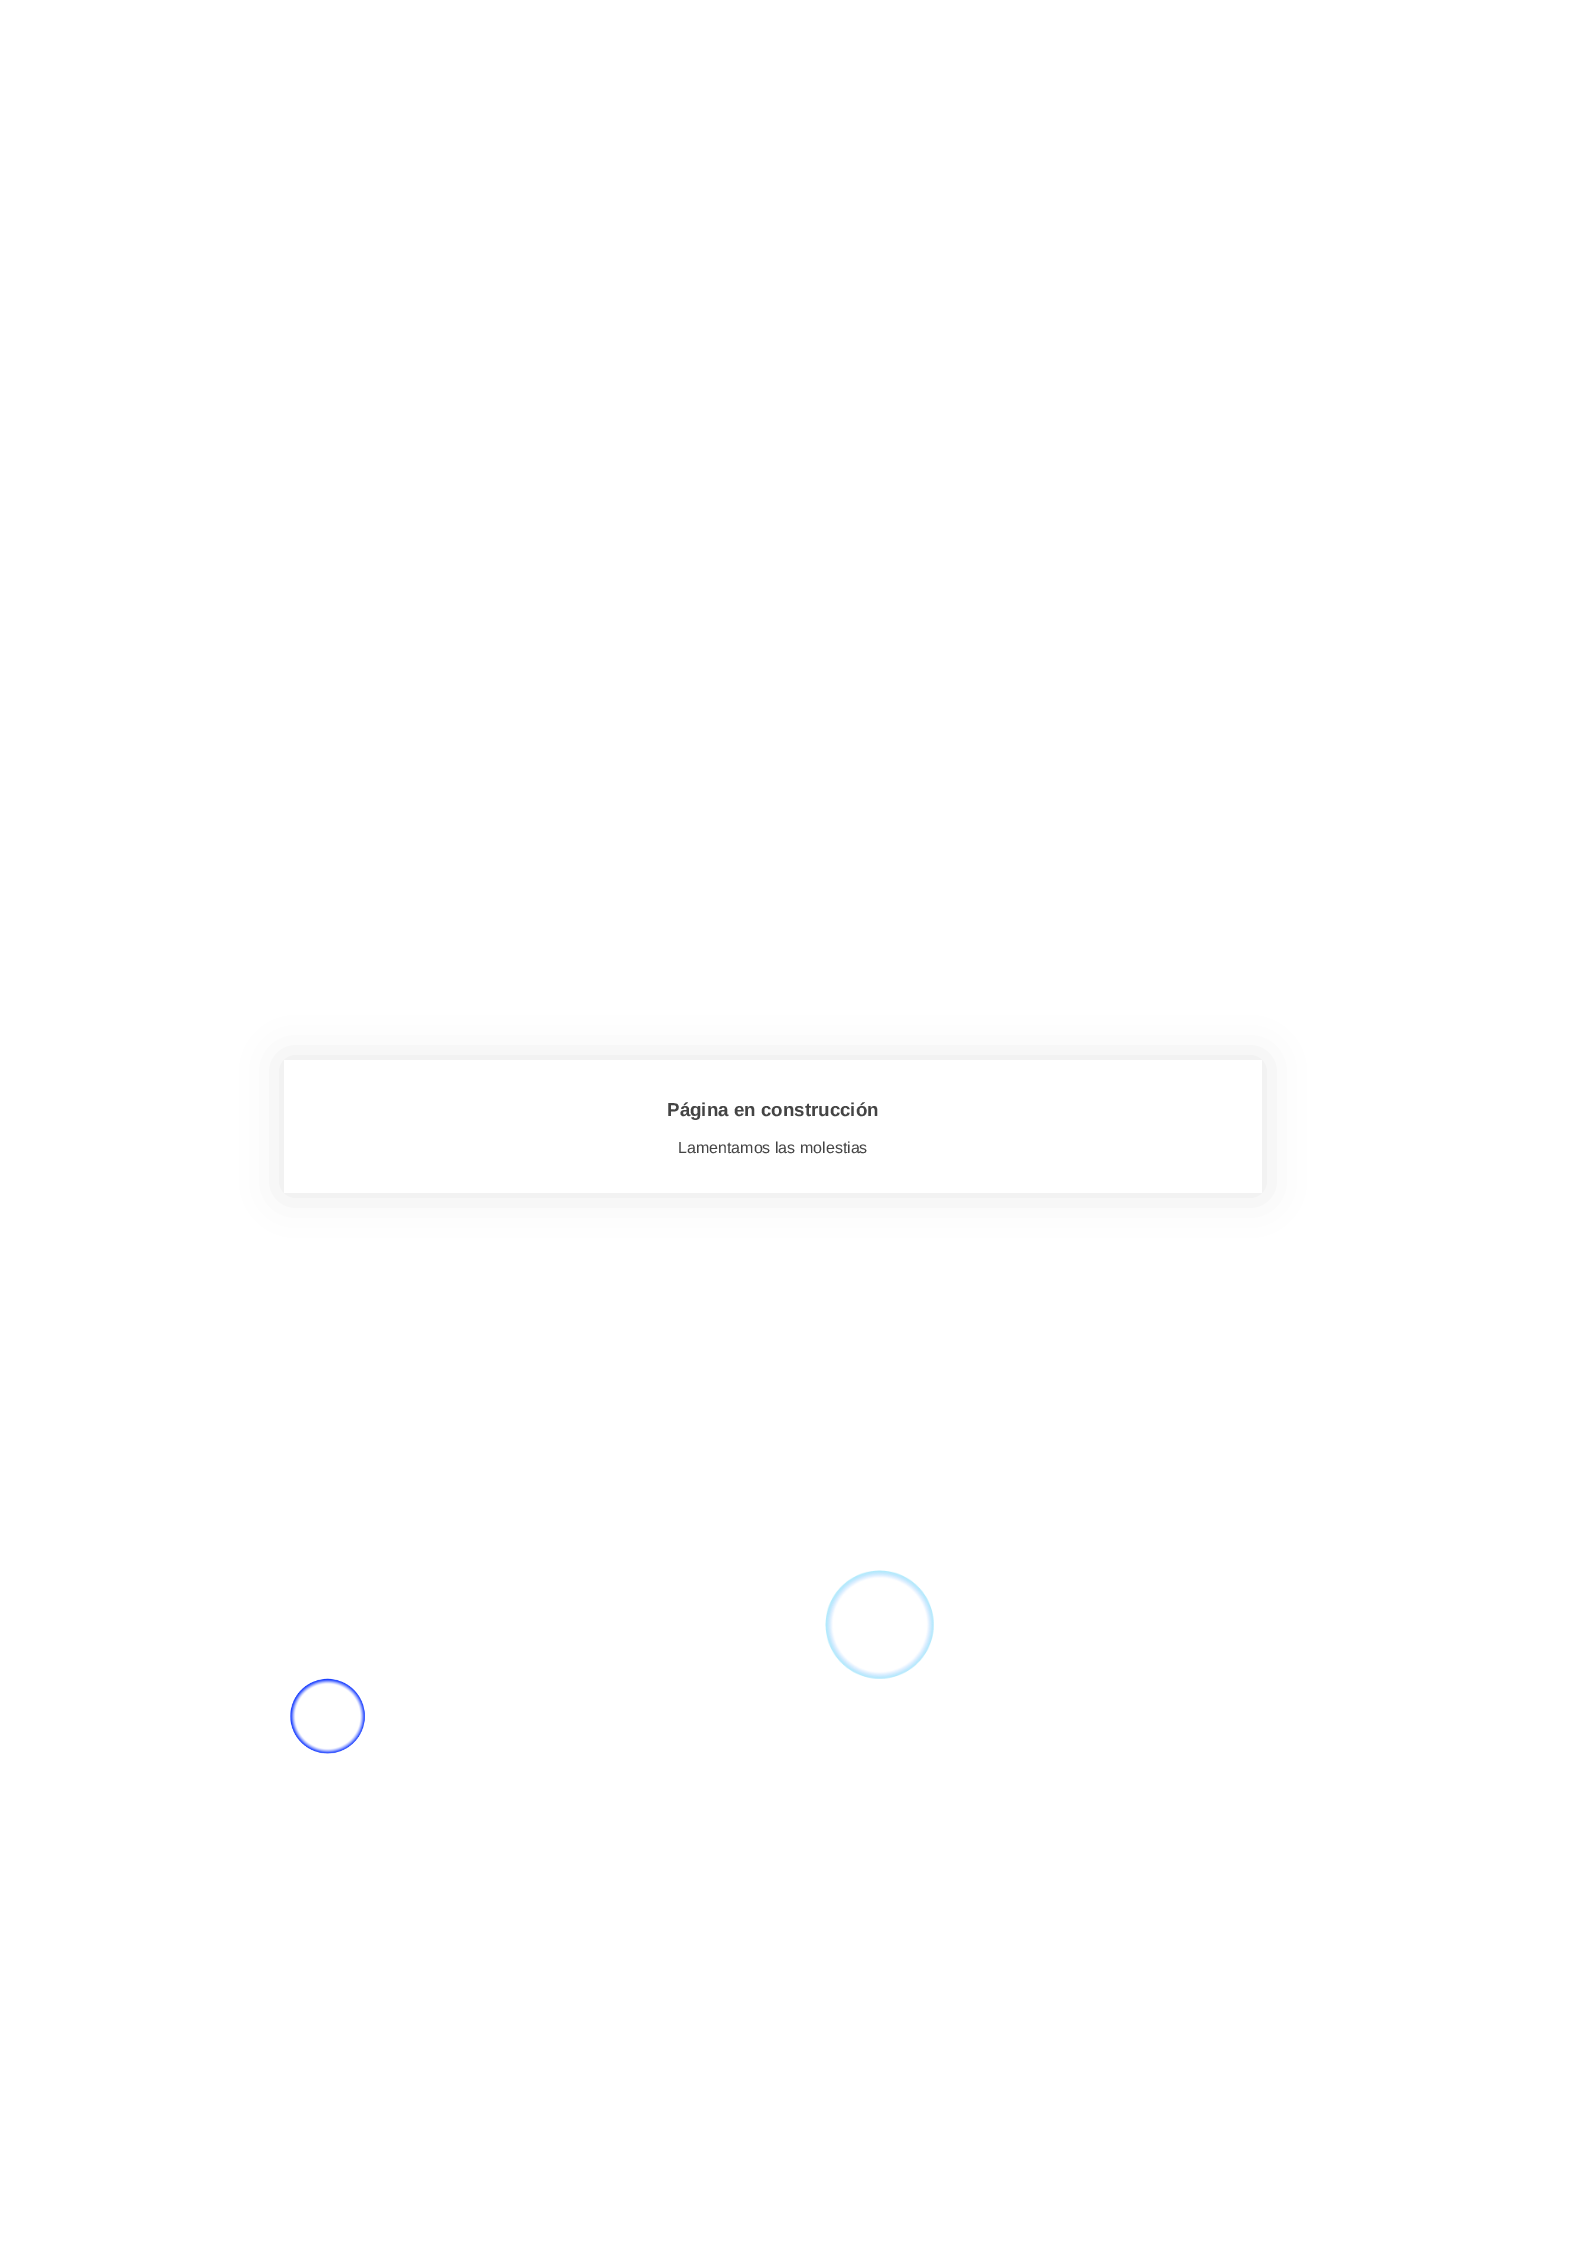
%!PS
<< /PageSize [1577 2253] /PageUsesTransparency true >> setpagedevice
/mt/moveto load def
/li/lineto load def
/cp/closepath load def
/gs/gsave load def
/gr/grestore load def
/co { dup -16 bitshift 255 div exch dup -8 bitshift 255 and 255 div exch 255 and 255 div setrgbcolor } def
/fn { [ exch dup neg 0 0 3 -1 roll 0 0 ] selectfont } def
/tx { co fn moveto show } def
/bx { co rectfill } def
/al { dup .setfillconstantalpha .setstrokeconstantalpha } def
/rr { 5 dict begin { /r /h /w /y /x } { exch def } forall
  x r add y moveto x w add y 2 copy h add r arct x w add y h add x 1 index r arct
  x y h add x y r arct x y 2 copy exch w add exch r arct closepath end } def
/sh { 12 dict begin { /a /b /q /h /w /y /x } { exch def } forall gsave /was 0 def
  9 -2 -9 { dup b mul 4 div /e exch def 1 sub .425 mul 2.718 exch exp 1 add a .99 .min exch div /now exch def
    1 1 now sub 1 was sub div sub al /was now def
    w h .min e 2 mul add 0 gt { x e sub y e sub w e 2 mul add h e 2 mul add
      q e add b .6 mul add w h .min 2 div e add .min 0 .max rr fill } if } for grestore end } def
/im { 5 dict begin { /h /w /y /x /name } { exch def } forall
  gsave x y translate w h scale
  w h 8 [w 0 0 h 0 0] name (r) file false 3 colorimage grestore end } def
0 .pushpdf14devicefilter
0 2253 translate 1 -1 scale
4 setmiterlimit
0 0 1577 2253 16#FFFFFF bx
gs
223 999 mt 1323 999 li 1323 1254 li 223 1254 li cp 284 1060 mt 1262 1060 li 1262 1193 li 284 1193 li cp eoclip newpath
16#000000 co
284 1060 978 133 0 20 .1 sh
gr
(media/1.raw) 290 1570 644 184 im
(Página en construcción) 667 1116 /LiberationSans-Bold 18.75 16#444444 tx
(Lamentamos las molestias) 678 1153 /LiberationSans-Regular 16 16#444444 tx
.poppdf14devicefilter showpage
